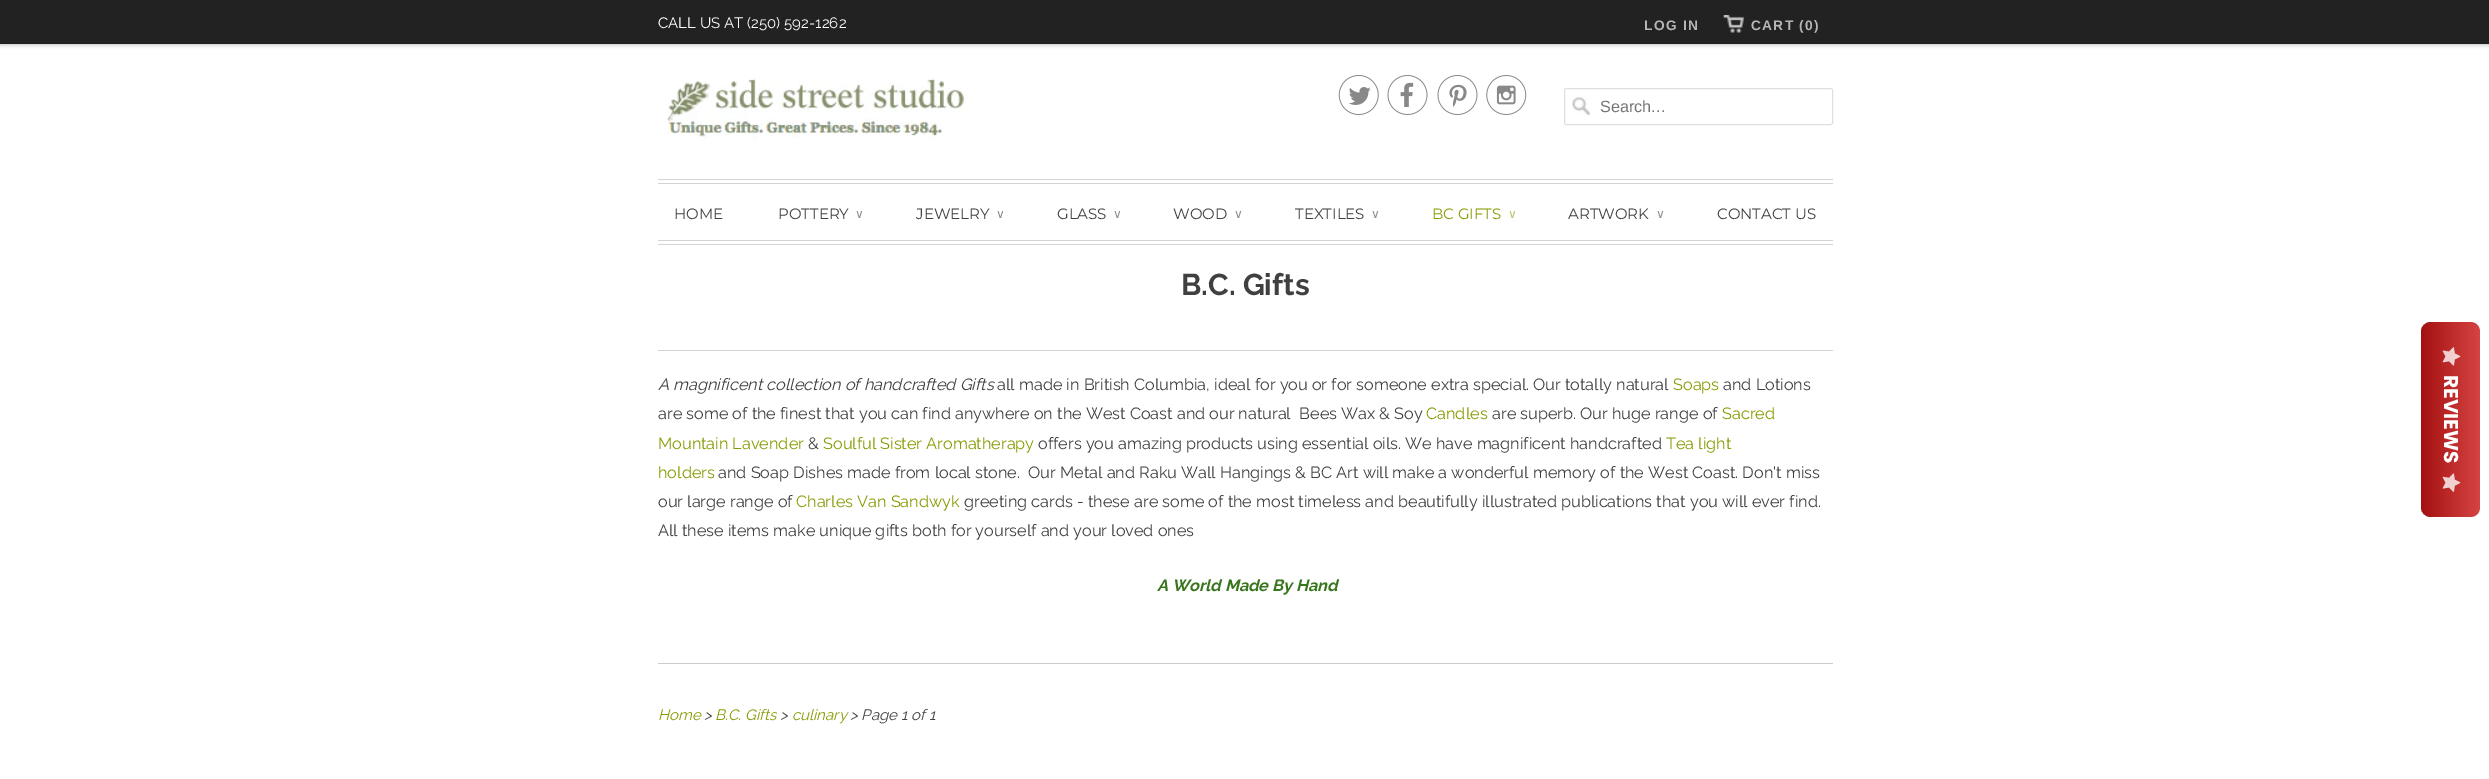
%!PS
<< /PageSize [2489 779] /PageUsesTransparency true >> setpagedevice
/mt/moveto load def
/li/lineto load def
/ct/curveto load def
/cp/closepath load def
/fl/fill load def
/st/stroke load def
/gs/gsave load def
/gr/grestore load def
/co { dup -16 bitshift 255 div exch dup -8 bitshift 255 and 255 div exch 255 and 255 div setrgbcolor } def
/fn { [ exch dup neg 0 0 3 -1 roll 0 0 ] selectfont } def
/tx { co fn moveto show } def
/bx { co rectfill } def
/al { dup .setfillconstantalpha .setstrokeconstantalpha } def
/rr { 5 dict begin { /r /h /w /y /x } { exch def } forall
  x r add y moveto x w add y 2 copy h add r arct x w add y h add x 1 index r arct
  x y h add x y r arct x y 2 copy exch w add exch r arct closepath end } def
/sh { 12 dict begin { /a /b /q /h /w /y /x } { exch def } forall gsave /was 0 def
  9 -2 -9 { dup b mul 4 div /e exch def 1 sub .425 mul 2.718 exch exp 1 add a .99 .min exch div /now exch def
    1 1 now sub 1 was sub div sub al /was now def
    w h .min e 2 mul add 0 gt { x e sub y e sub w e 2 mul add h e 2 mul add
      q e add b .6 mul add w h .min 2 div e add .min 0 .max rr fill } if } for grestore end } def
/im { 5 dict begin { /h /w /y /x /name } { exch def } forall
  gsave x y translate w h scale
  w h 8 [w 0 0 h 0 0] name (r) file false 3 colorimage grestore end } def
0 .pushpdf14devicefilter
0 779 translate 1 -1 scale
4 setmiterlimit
0 0 2489 779 16#FFFFFF bx
16#000000 co
0 1 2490 44 0 2 .25 sh
0 0 2489 43 16#222222 bx
0 43 2489 1 16#1F1F1F bx
(media/1.raw) 1723 15 21 18 im
(media/2.raw) 667 78 300 64 im
(media/3.raw) 1338 75 41 40 im
(media/4.raw) 1387 75 41 40 im
(media/5.raw) 1437 75 41 40 im
(media/6.raw) 1486 75 41 40 im
(media/7.raw) 1572 97 18 18 im
16#DFDFDF co
1564.5 88.5 268 36 2 rr st
658 179 1175 1 16#D3D3D3 bx
658 183 1175 1 16#D3D3D3 bx
658 240 1175 1 16#D3D3D3 bx
658 244 1175 1 16#D3D3D3 bx
658 663 1175 1 16#CCCCCC bx
658 350 1175 1 16#D3D3D3 bx
16#CC1414 co
2480 332 mt 2480 507 li 2480 513 2476 517 2470 517 ct 2431 517 li 2426 517 2421 513 2421 507 ct 2421 332 li 2421 326 2426 322 2431 322 ct 2470 322 li 2476 322 2480 326 2480 332 ct cp fl
0.2 al
gs 2480 332 mt 2480 507 li 2480 513 2476 517 2470 517 ct 2431 517 li 2426 517 2421 513 2421 507 ct 2421 332 li 2421 326 2426 322 2431 322 ct 2470 322 li 2476 322 2480 326 2480 332 ct cp clip newpath
<< /ShadingType 2 /ColorSpace /DeviceRGB /Coords [2480 419 2421 419] /Extend [true true] /Function << /FunctionType 2 /Domain [0 1] /C0 [1 1 1] /C1 [0 0 0] /N 1 >> >> shfill gr
1 al
(media/8.raw) 2442 347 19 19 im
(media/9.raw) 2442 473 19 19 im
(CALL US AT \(250\) 592-1262) 658 28 /Raleway-Regular 15 16#FFFFFF tx
/LiberationSans-Bold 13.75 fn
16#B6B6B6 co
1644 30 mt 1.25 0 (LOG IN) ashow
1751 30 mt 1.25 0 (CART \(0\)) ashow
(Search...) 1600 112 /LiberationSans-Regular 16.25 16#757575 tx
(HOME) 674 219 /Montserrat-Regular 15 16#404040 tx
(POTTERY) 778 219 /Montserrat-Regular 15 16#404040 tx
(∨) 855 218 /DejaVuSans-Regular 12 16#8C8C8C tx
(JEWELRY) 916 219 /Montserrat-Regular 15 16#404040 tx
(∨) 996 218 /DejaVuSans-Regular 12 16#8C8C8C tx
(GLASS) 1057 219 /Montserrat-Regular 15 16#404040 tx
(∨) 1113 218 /DejaVuSans-Regular 12 16#8C8C8C tx
(WOOD) 1173 219 /Montserrat-Regular 15 16#404040 tx
(∨) 1234 218 /DejaVuSans-Regular 12 16#8C8C8C tx
(TEXTILES) 1295 219 /Montserrat-Regular 15 16#404040 tx
(∨) 1371 218 /DejaVuSans-Regular 12 16#8C8C8C tx
(BC GIFTS) 1432 219 /Montserrat-Regular 15 16#889A02 tx
(∨) 1508 218 /DejaVuSans-Regular 12 16#B8C267 tx
(ARTWORK) 1568 219 /Montserrat-Regular 15 16#404040 tx
(∨) 1656 218 /DejaVuSans-Regular 12 16#8C8C8C tx
(CONTACT US) 1717 219 /Montserrat-Regular 15 16#404040 tx
(B.C. Gifts) 1181 295 /Raleway-Bold 30 16#404040 tx
(A magnificent collection of handcrafted Gifts) 658 390 /Raleway-Italic 16.25 16#404040 tx
(all made in British Columbia, ideal for you or for someone extra special. Our totally natural) 997 390 /Raleway-Regular 16.25 16#404040 tx
(Soaps) 1673 390 /Raleway-Regular 16.25 16#889A02 tx
(and Lotions) 1723 390 /Raleway-Regular 16.25 16#404040 tx
(are some of the finest that you can find anywhere on the West Coast and our natural  Bees Wax & Soy) 658 419 /Raleway-Regular 16.25 16#404040 tx
(Candles) 1426 419 /Raleway-Regular 16.25 16#889A02 tx
(are superb. Our huge range of) 1492 419 /Raleway-Regular 16.25 16#404040 tx
(Sacred) 1722 419 /Raleway-Regular 16.25 16#889A02 tx
(Mountain Lavender) 658 449 /Raleway-Regular 16.25 16#889A02 tx
(&) 808 449 /Raleway-Regular 16.25 16#404040 tx
(Soulful Sister Aromatherapy) 823 449 /Raleway-Regular 16.25 16#889A02 tx
(offers you amazing products using essential oils. We have magnificent handcrafted) 1038 449 /Raleway-Regular 16.25 16#404040 tx
(Tea light) 1666 449 /Raleway-Regular 16.25 16#889A02 tx
(holders) 658 478 /Raleway-Regular 16.25 16#889A02 tx
(and Soap Dishes made from local stone.  Our Metal and Raku Wall Hangings & BC Art will make a wonderful memory of the West Coast. Don't miss) 718 478 /Raleway-Regular 16.25 16#404040 tx
(our large range of) 658 507 /Raleway-Regular 16.25 16#404040 tx
(Charles Van Sandwyk) 796 507 /Raleway-Regular 16.25 16#889A02 tx
(greeting cards - these are some of the most timeless and beautifully illustrated publications that you will ever find.) 964 507 /Raleway-Regular 16.25 16#404040 tx
(All these items make unique gifts both for yourself and your loved ones) 658 536 /Raleway-Regular 16.25 16#404040 tx
(A World Made By Hand) 1157 591 /Raleway-BoldItalic 16.25 16#38761D tx
(Home) 658 720 /Raleway-Italic 15 16#889A02 tx
(>) 704 720 /Raleway-Italic 15 16#404040 tx
(B.C. Gifts) 715 720 /Raleway-Italic 15 16#889A02 tx
(>) 780 720 /Raleway-Italic 15 16#404040 tx
(culinary) 792 720 /Raleway-Italic 15 16#889A02 tx
(> Page 1 of 1) 850 720 /Raleway-Italic 15 16#404040 tx
/Poppins-Bold 20 fn
16#FFFFFF co
gs 2444 375 translate 90 rotate 0 0 mt (REVIEWS) show gr
.poppdf14devicefilter showpage
